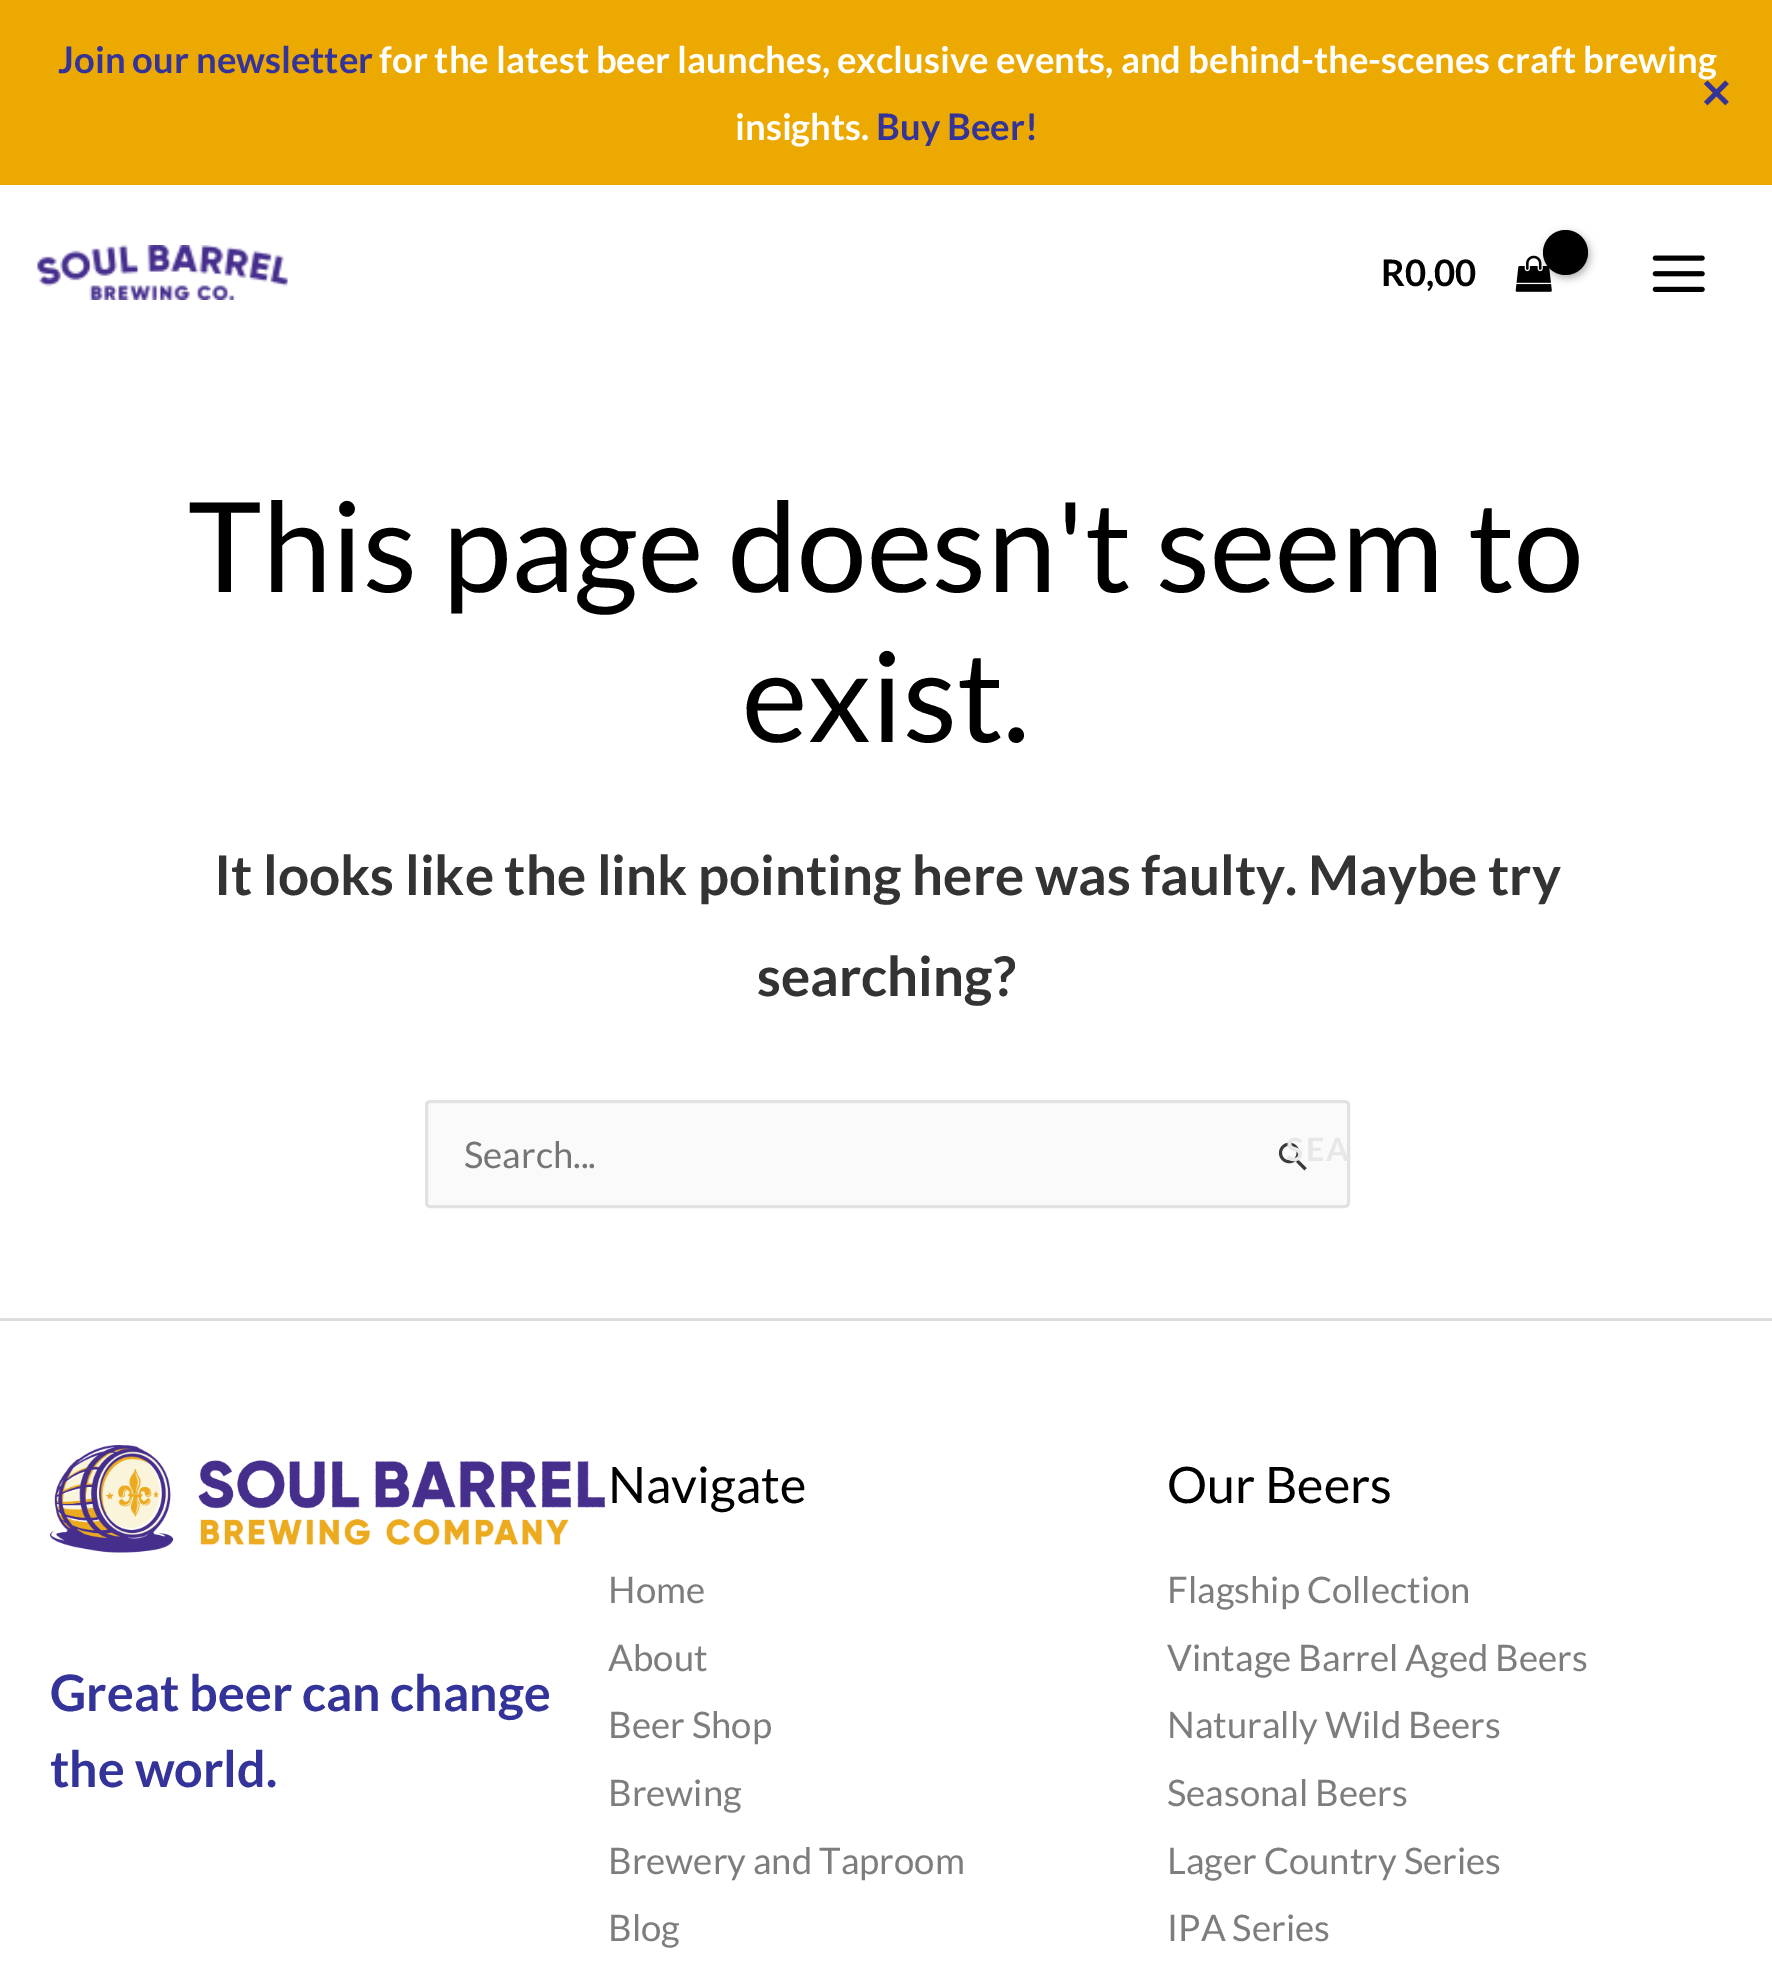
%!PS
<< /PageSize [1772 1965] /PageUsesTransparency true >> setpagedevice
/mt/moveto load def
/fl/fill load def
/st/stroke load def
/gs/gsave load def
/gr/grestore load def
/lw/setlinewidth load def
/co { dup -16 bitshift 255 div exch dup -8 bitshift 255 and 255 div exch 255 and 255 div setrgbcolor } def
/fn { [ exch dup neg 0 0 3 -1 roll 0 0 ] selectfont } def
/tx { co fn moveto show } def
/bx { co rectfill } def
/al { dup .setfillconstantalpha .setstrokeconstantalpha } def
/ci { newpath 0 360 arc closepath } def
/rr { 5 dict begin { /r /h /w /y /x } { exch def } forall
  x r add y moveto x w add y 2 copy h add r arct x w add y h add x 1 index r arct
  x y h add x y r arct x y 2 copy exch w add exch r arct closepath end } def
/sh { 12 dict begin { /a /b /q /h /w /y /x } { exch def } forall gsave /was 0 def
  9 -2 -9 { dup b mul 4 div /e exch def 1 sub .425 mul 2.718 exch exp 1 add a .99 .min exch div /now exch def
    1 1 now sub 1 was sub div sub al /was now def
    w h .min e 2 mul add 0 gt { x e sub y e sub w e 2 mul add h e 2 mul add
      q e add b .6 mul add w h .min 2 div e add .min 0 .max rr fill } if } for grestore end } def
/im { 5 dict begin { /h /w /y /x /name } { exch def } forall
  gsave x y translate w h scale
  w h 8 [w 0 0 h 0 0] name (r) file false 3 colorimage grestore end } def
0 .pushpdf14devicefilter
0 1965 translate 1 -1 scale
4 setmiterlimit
0 0 1772 1965 16#FFFFFF bx
0 0 1772 185 16#EBA902 bx
(media/1.raw) 37 245 251 55 im
(media/2.raw) 1515 255 37 37 im
16#000000 co
1545 233 45 45 22.5 4 .3 sh
1565.5 252.5 22.5 ci fl
(media/3.raw) 1652 255 53 37 im
16#FAFAFA co
426.5 1101.5 922 105 3.5 rr gs fl gr
16#E2E2E2 co
3 lw
st
(media/4.raw) 1278 1142 29 29 im
0 1318 1772 3 16#DDDDDD bx
(media/5.raw) 50 1445 555 108 im
(Join our newsletter) 58 73 /Lato-Bold 36.5 16#333399 tx
(for the latest beer launches, exclusive events, and behind-the-scenes craft brewing) 379 73 /Lato-Bold 36.5 16#FFFFFF tx
(insights.) 735 140 /Lato-Bold 36.5 16#FFFFFF tx
(Buy Beer!) 876 140 /Lato-Bold 36.5 16#333399 tx
/DejaVuSans-Bold 40 fn
1699 108 mt 2.5 0 (✕) ashow
(R0,00) 1381 286 /Lato-Bold 36.5 16#000000 tx
(This page doesn't seem to) 188 592 /Lato-Regular 125 16#000000 tx
(exist.) 742 742 /Lato-Regular 125 16#000000 tx
(It looks like the link pointing here was faulty. Maybe try) 214 895 /Lato-Bold 54.75 16#333333 tx
(searching?) 757 996 /Lato-Bold 54.75 16#333333 tx
(Search...) 464 1168 /Lato-Regular 36.5 16#757575 tx
/Lato-Bold 32 fn
16#E7E7E7 co
1286 1161 mt 2.5 0 (SEA) ashow
(Great beer can change) 50 1711 /Lato-Bold 50.25 16#333399 tx
(the world.) 50 1787 /Lato-Bold 50.25 16#333399 tx
(Navigate) 608 1503 /Lato-Regular 50.25 16#000000 tx
(Home) 608 1603 /Lato-Regular 36.5 16#7D7D7D tx
(About) 608 1671 /Lato-Regular 36.5 16#7D7D7D tx
(Beer Shop) 608 1738 /Lato-Regular 36.5 16#7D7D7D tx
(Brewing) 608 1806 /Lato-Regular 36.5 16#7D7D7D tx
(Brewery and Taproom) 608 1874 /Lato-Regular 36.5 16#7D7D7D tx
(Blog) 608 1941 /Lato-Regular 36.5 16#7D7D7D tx
(Our Beers) 1167 1503 /Lato-Regular 50.25 16#000000 tx
(Flagship Collection) 1167 1603 /Lato-Regular 36.5 16#7D7D7D tx
(Vintage Barrel Aged Beers) 1167 1671 /Lato-Regular 36.5 16#7D7D7D tx
(Naturally Wild Beers) 1167 1738 /Lato-Regular 36.5 16#7D7D7D tx
(Seasonal Beers) 1167 1806 /Lato-Regular 36.5 16#7D7D7D tx
(Lager Country Series) 1167 1874 /Lato-Regular 36.5 16#7D7D7D tx
(IPA Series) 1167 1941 /Lato-Regular 36.5 16#7D7D7D tx
.poppdf14devicefilter showpage
